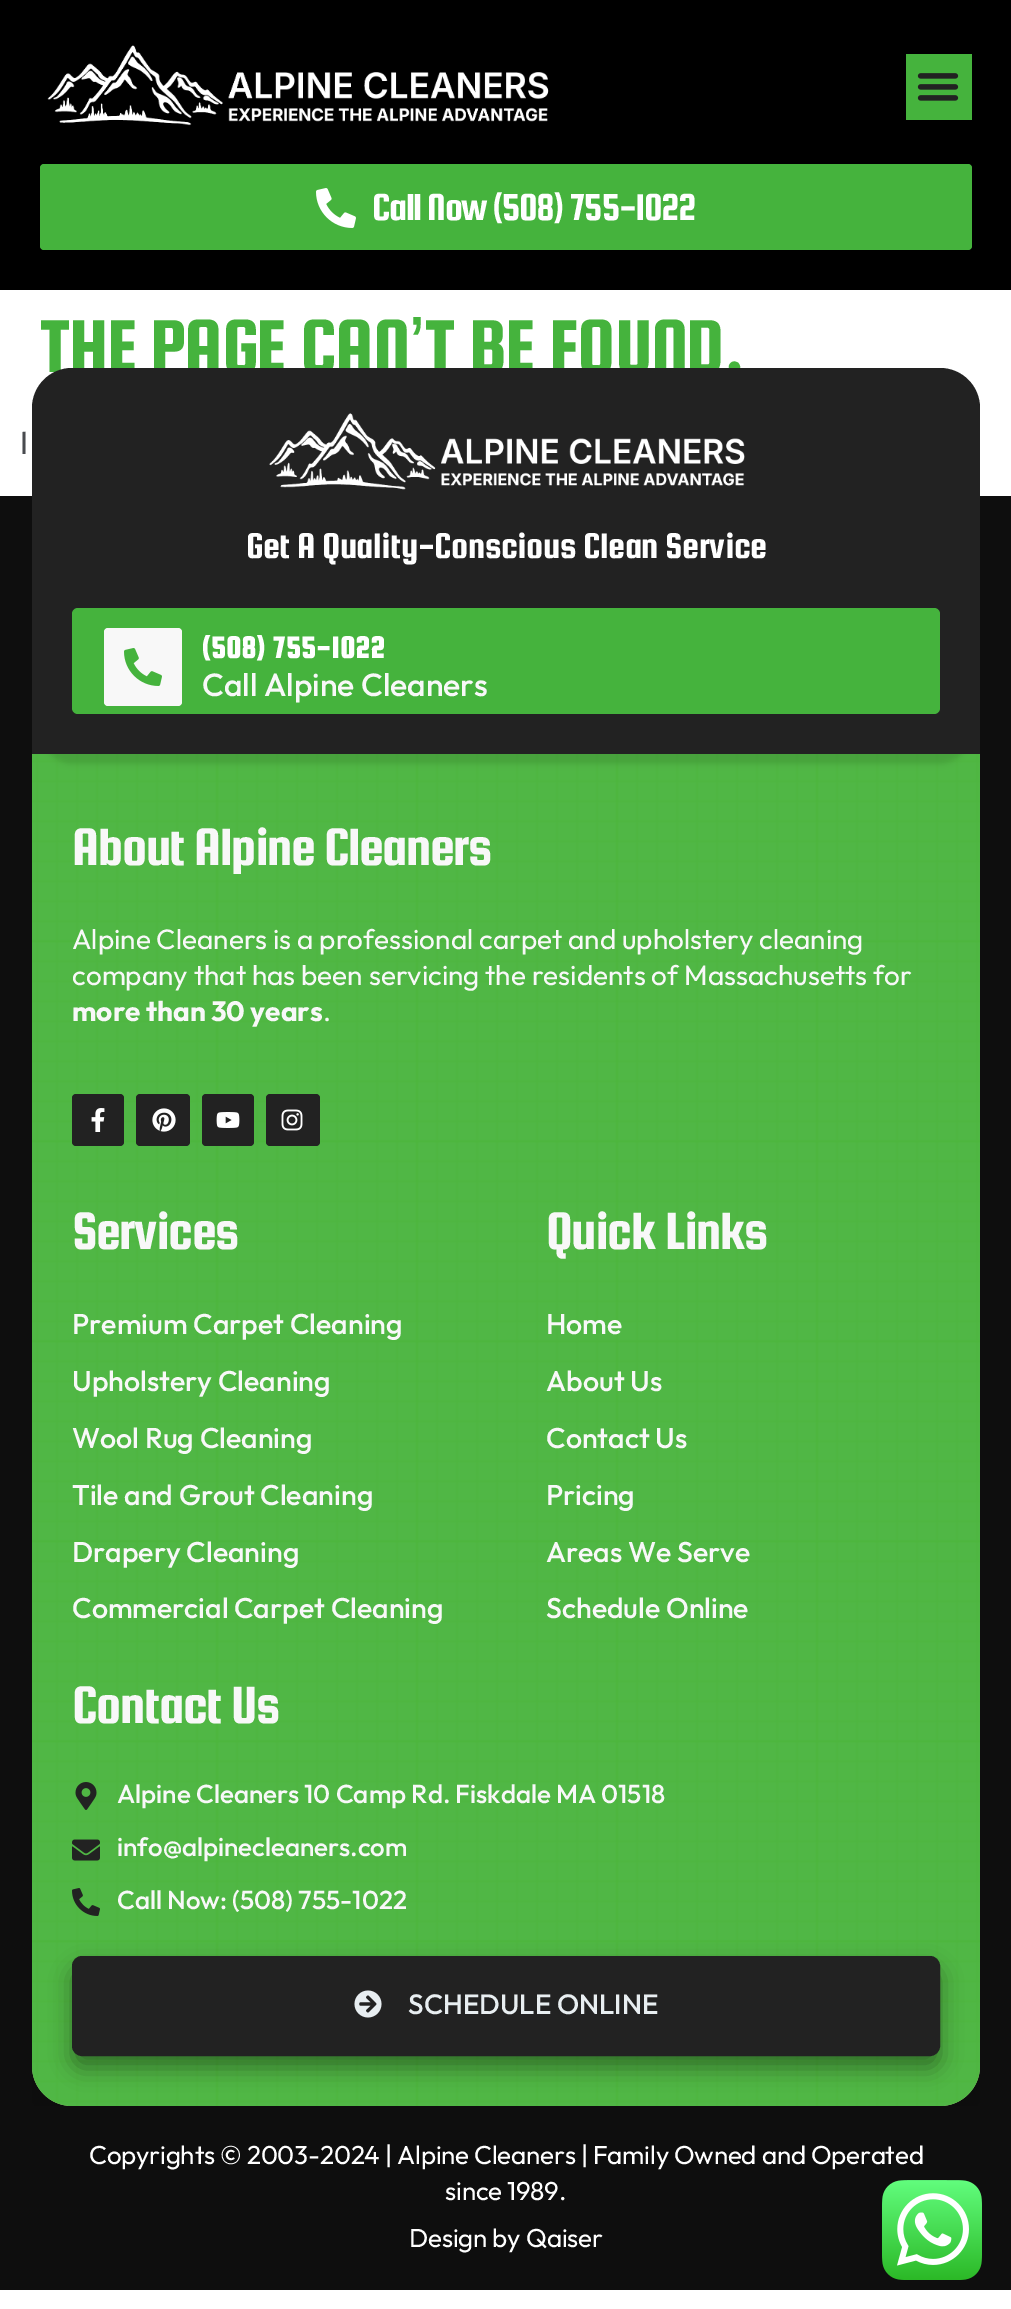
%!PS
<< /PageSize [1011 2309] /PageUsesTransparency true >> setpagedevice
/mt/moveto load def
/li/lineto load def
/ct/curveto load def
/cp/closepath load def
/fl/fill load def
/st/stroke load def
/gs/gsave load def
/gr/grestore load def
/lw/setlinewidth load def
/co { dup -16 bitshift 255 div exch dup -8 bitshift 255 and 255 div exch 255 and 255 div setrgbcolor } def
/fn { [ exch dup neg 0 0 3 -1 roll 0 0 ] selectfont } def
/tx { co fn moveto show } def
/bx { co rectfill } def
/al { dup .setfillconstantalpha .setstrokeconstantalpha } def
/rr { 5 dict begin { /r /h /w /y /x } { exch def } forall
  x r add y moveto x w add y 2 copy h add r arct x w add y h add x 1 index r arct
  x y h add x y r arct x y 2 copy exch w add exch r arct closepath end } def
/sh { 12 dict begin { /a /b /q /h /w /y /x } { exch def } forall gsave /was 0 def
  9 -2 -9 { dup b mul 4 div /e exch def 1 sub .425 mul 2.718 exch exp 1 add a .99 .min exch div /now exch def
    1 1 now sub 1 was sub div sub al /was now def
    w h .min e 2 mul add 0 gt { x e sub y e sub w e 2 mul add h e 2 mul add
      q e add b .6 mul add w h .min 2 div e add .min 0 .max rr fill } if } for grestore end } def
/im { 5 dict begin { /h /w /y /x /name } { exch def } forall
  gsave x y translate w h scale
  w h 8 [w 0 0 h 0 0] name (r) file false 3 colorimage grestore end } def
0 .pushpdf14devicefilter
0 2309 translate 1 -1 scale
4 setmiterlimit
0 0 1011 2309 16#FFFFFF bx
0 0 1011 290 16#000000 bx
(media/1.raw) 47 45 502 81 im
906 54 66 66 16#45B33D bx
(media/2.raw) 917 73 42 28 im
40 164 932 86 4 rr fl
(media/3.raw) 316 188 40 40 im
0 496 1011 1794 16#0E0E0E bx
16#DEEDA8 co
32 754 mt 980 754 li 980 2066 li 980 2088 962 2106 940 2106 ct 72 2106 li 50 2106 32 2088 32 2066 ct cp fl
(media/6.raw) 32 754 948 1352 im
0.93 al
16#45B33D co
32 754 mt 980 754 li 980 2066 li 980 2088 962 2106 940 2106 ct 72 2106 li 50 2106 32 2088 32 2066 ct cp fl
1 al
16#000000 co
42 398 928 366 30 3 .11 sh
16#222222 co
72 1094 52 52 4 rr fl
(media/7.raw) 91 1108 14 24 im
136 1094 54 52 4 rr fl
(media/8.raw) 152 1108 24 24 im
202 1094 52 52 4 rr fl
(media/9.raw) 216 1112 24 16 im
266 1094 54 52 4 rr fl
(media/10.raw) 281 1109 22 22 im
(media/11.raw) 75 1782 22 28 im
(media/12.raw) 72 1839 28 22 im
(media/13.raw) 72 1888 28 28 im
16#000000 co
72 1968 868 100 10 11 .38 sh
16#222222 co
73 1957 866 98 9 rr gs fl gr
2 lw
st
(media/14.raw) 354 1990 28 28 im
(media/15.raw) 882 2180 100 100 im
/SquadaOne-Regular 40 fn
16#FFFFFF co
372 220 mt -1.4 0 (Call Now \(508\) 755-1022) ashow
/SquadaOne-Regular 80 fn
16#45B33D co
40 372 mt -1.4 0 (THE PAGE CAN) ashow
/LiberationSans-Regular 80 fn
408 372 mt -1.4 0 (’) ashow
/SquadaOne-Regular 80 fn
425 372 mt -1.4 0 (T BE FOUND.) ashow
(I) 20 454 /Outfit-Regular 32 16#494B4F tx
16#222222 co
72 368 mt 940 368 li 962 368 980 386 980 408 ct 980 754 li 32 754 li 32 408 li 32 386 50 368 72 368 ct cp fl
(media/4.raw) 269 413 476 77 im
/SquadaOne-Regular 38 fn
16#FFFFFF co
246 558 mt -.4 0 (Get A Quality-Conscious Clean Service) ashow
16#45B33D co
72 608 868 106 6 rr fl
16#F8F8F8 co
104 628 78 78 4 rr fl
(media/5.raw) 124 648 38 38 im
/SquadaOne-Bold 32 fn
16#FFFFFF co
202 658 mt .4 0 (\(508\) 755-1022) ashow
(Call Alpine Cleaners) 202 696 /Outfit-Medium 32 16#F8F8F8 tx
/SquadaOne-Regular 56 fn
72 865 mt -1.4 0 (About Alpine Cleaners) ashow
(Alpine Cleaners is a professional carpet and upholstery cleaning) 72 949 /Outfit-Regular 28 16#F8F8F8 tx
(company that has been servicing the residents of Massachusetts for) 72 985 /Outfit-Regular 28 16#F8F8F8 tx
(more than 30 years) 72 1021 /Outfit-Bold 28 16#F8F8F8 tx
(.) 323 1021 /Outfit-Regular 28 16#F8F8F8 tx
/SquadaOne-Regular 56 fn
72 1249 mt -1.4 0 (Services) ashow
(Premium Carpet Cleaning) 72 1334 /Outfit-Medium 28.6 16#F8F8F8 tx
(Upholstery Cleaning) 72 1391 /Outfit-Medium 28.6 16#F8F8F8 tx
(Wool Rug Cleaning) 72 1448 /Outfit-Medium 28.6 16#F8F8F8 tx
(Tile and Grout Cleaning) 72 1505 /Outfit-Medium 28.6 16#F8F8F8 tx
(Drapery Cleaning) 72 1562 /Outfit-Medium 28.6 16#F8F8F8 tx
(Commercial Carpet Cleaning) 72 1618 /Outfit-Medium 28.6 16#F8F8F8 tx
/SquadaOne-Regular 56 fn
546 1249 mt -1.4 0 (Quick Links) ashow
(Home) 546 1334 /Outfit-Medium 28.6 16#F8F8F8 tx
(About Us) 546 1391 /Outfit-Medium 28.6 16#F8F8F8 tx
(Contact Us) 546 1448 /Outfit-Medium 28.6 16#F8F8F8 tx
(Pricing) 546 1505 /Outfit-Medium 28.6 16#F8F8F8 tx
(Areas We Serve) 546 1562 /Outfit-Medium 28.6 16#F8F8F8 tx
(Schedule Online) 546 1618 /Outfit-Medium 28.6 16#F8F8F8 tx
/SquadaOne-Regular 56 fn
72 1723 mt -1.4 0 (Contact Us) ashow
(Alpine Cleaners 10 Camp Rd. Fiskdale MA 01518) 117 1803 /Outfit-Medium 26 16#F8F8F8 tx
(info@alpinecleaners.com) 117 1856 /Outfit-Medium 26 16#F8F8F8 tx
(Call Now: \(508\) 755-1022) 117 1909 /Outfit-Medium 26 16#F8F8F8 tx
(SCHEDULE ONLINE) 408 2014 /Outfit-Medium 28 16#E8EEF1 tx
/Outfit-Regular 26 fn
16#FFFFFF co
89 2164 mt -.2 0 (Copyrights © 2003-2024 | Alpine Cleaners | Family Owned and Operated) ashow
445 2200 mt -.2 0 (since 1989.) ashow
409 2247 mt -.2 0 (Design by Qaiser) ashow
.poppdf14devicefilter showpage
